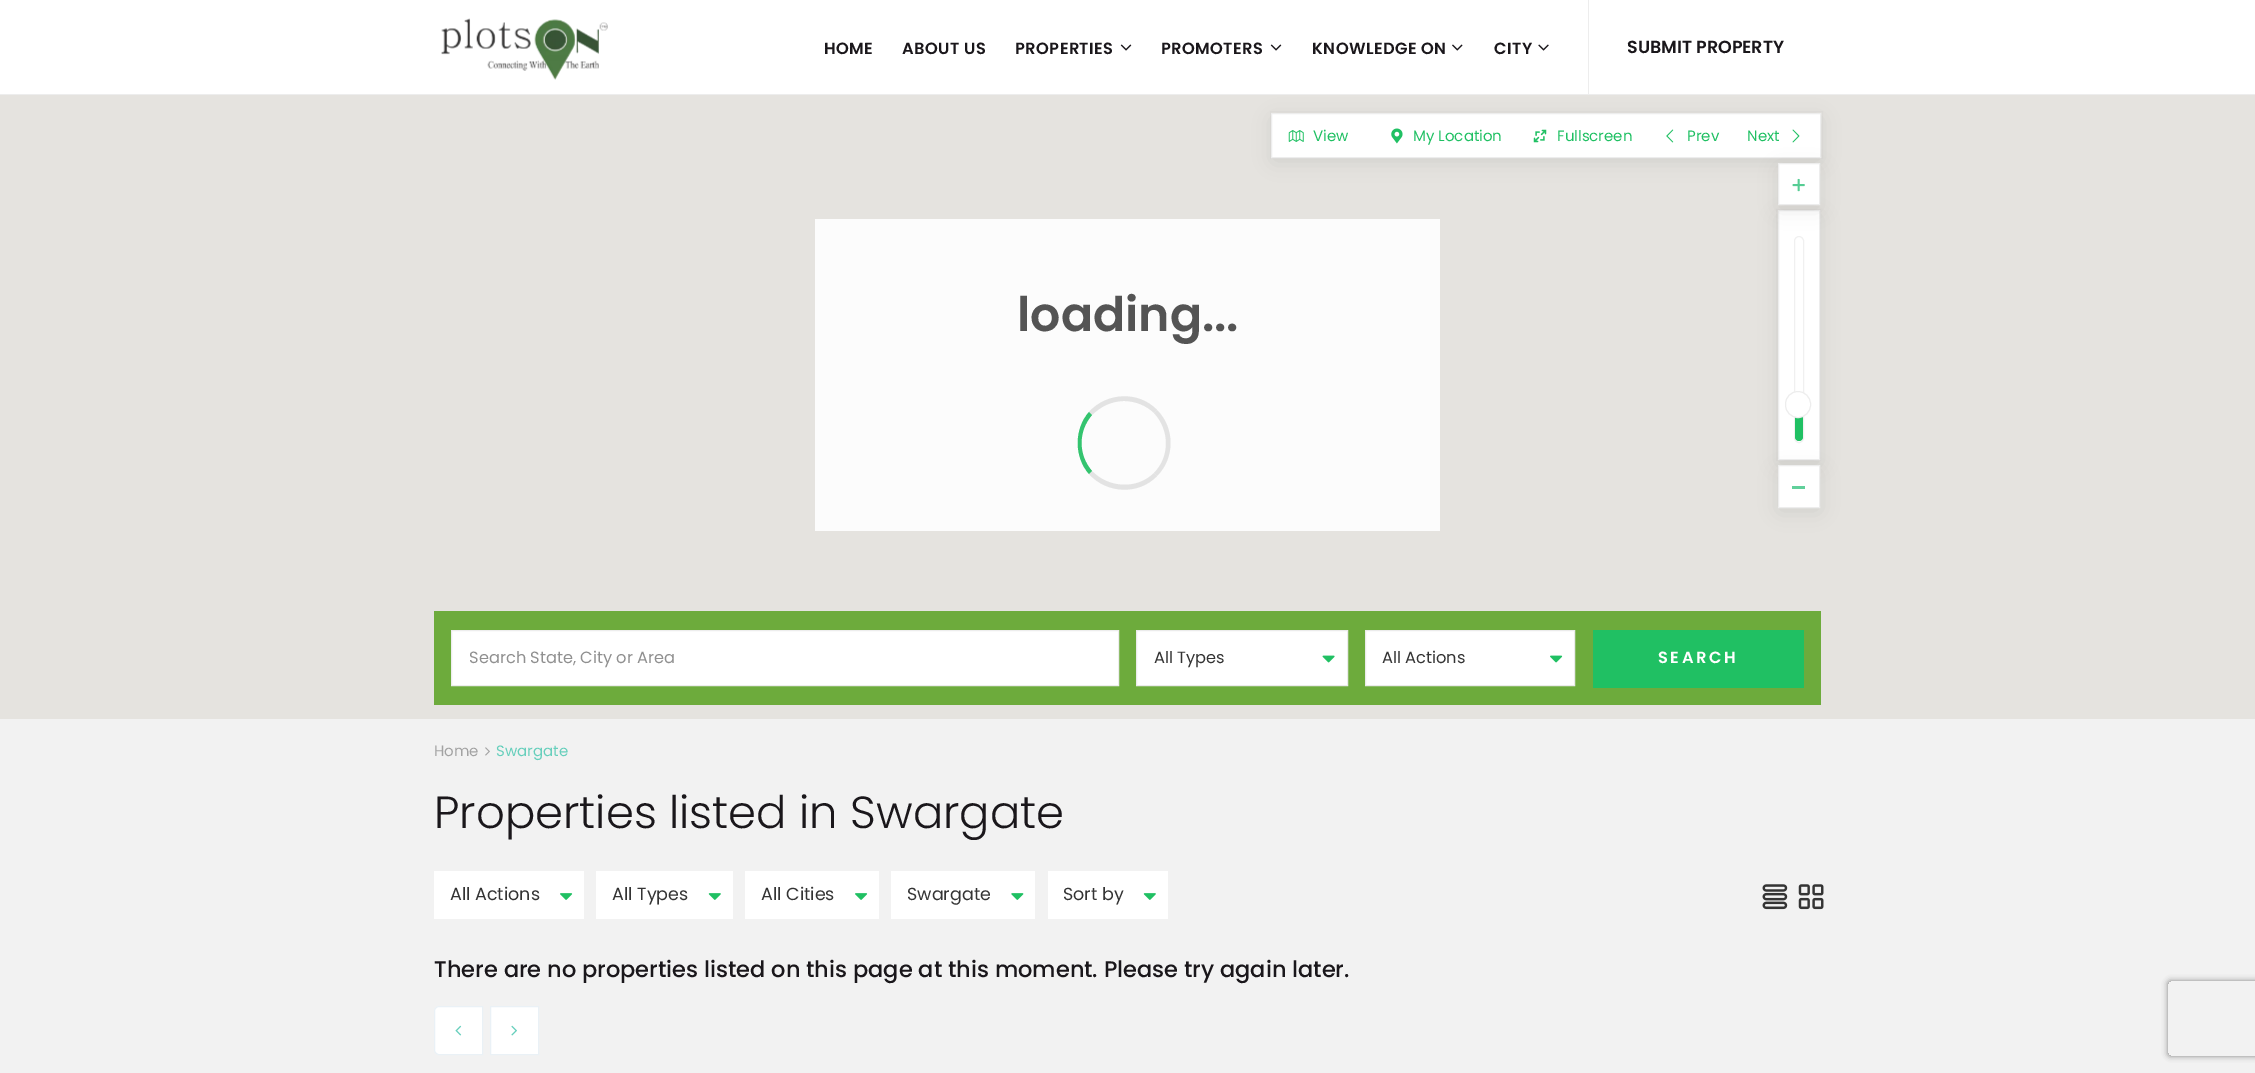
%!PS
<< /PageSize [2255 1073] /PageUsesTransparency true >> setpagedevice
/mt/moveto load def
/li/lineto load def
/ct/curveto load def
/cp/closepath load def
/fl/fill load def
/st/stroke load def
/gs/gsave load def
/gr/grestore load def
/co { dup -16 bitshift 255 div exch dup -8 bitshift 255 and 255 div exch 255 and 255 div setrgbcolor } def
/fn { [ exch dup neg 0 0 3 -1 roll 0 0 ] selectfont } def
/tx { co fn moveto show } def
/bx { co rectfill } def
/al { dup .setfillconstantalpha .setstrokeconstantalpha } def
/rr { 5 dict begin { /r /h /w /y /x } { exch def } forall
  x r add y moveto x w add y 2 copy h add r arct x w add y h add x 1 index r arct
  x y h add x y r arct x y 2 copy exch w add exch r arct closepath end } def
/sh { 12 dict begin { /a /b /q /h /w /y /x } { exch def } forall gsave /was 0 def
  9 -2 -9 { dup b mul 4 div /e exch def 1 sub .425 mul 2.718 exch exp 1 add a .99 .min exch div /now exch def
    1 1 now sub 1 was sub div sub al /was now def
    w h .min e 2 mul add 0 gt { x e sub y e sub w e 2 mul add h e 2 mul add
      q e add b .6 mul add w h .min 2 div e add .min 0 .max rr fill } if } for grestore end } def
/im { 5 dict begin { /h /w /y /x /name } { exch def } forall
  gsave x y translate w h scale
  w h 8 [w 0 0 h 0 0] name (r) file false 3 colorimage grestore end } def
0 .pushpdf14devicefilter
0 1073 translate 1 -1 scale
4 setmiterlimit
0 0 2255 1073 16#F2F2F2 bx
0 95 2255 624 16#E5E3DF bx
16#E0DEDB co
1270.5 111.5 552 47 rectstroke
16#000000 co
1274 120 545 40 0 10 .1 sh
0 0 2255 94 16#FFFFFF bx
0 94 2255 1 16#EDEDED bx
(media/1.raw) 441 18 167 62 im
(media/2.raw) 1120 44 12 7 im
(media/2.raw) 1270 44 12 7 im
(media/3.raw) 1452 44 11 7 im
(media/4.raw) 1538 44 11 7 im
1588 0 1 94 16#EDEDED bx
16#FFFFFF co
1271.5 113.5 mt 1820.5 113.5 li 1820.5 157.5 li 1271.5 157.5 li cp gs fl gr
16#EDEDED co
st
(media/5.raw) 1288 130 16 12 im
(media/6.raw) 1391 128 12 16 im
(media/7.raw) 1533 129 14 14 im
(media/8.raw) 1666 129 8 14 im
(media/9.raw) 1792 129 8 14 im
16#E0DEDB co
1776.5 209.5 44 251 rectstroke
16#000000 co
1780 218 38 245 0 10 .1 sh
16#FFFFFF co
1778.5 210.5 mt 1819.5 210.5 li 1819.5 459.5 li 1778.5 459.5 li cp gs fl gr
16#EDEDED co
st
16#F0F0F0 co
1794.5 236.5 9 206 4.5 rr st
16#000000 co
1780 170 38 38 0 10 .1 sh
16#FFFFFF co
1778.5 163.5 mt 1819.5 163.5 li 1819.5 204.5 li 1778.5 204.5 li cp gs fl gr
16#EDEDED co
st
(media/10.raw) 1792 178 13 14 im
16#20C063 co
1795 409 8 32 4 rr fl
16#FFFFFF co
1785.5 391.5 25 26 12.5 rr gs fl gr
16#EDEDED co
st
16#000000 co
1780 473 38 37 0 10 .1 sh
16#FFFFFF co
1778.5 465.5 mt 1819.5 465.5 li 1819.5 507.5 li 1778.5 507.5 li cp gs fl gr
16#EDEDED co
st
1792 486 13 3 16#61D09B bx
815 219 625 312 16#FCFCFC bx
16#E3E3E3 co
1124 401 mt 1111 401 1100 407 1092 415 ct 1089 412 li 1107 392 1139 391 1157 410 ct 1154 413 li 1147 406 1136 401 1124 401 ct cp fl
1157 410 mt 1175 428 1175 458 1157 476 ct 1154 473 li 1170 457 1170 430 1154 413 ct cp fl
1157 476 mt 1139 495 1107 494 1089 474 ct 1092 471 li 1108 488 1137 490 1154 473 ct cp fl
16#34C46F co
1089 474 mt 1074 457 1074 429 1089 412 ct 1092 415 li 1078 431 1078 455 1092 471 ct cp fl
434 611 1387 94 16#6DAB3C bx
16#FFFFFF co
451.5 630.5 mt 1118.5 630.5 li 1118.5 685.5 li 451.5 685.5 li cp gs fl gr
16#EDEDED co
st
16#FFFFFF co
1136.5 630.5 mt 1347.5 630.5 li 1347.5 685.5 li 1136.5 685.5 li cp gs fl gr
16#EBEBEB co
st
(media/11.raw) 1322 655 13 8 im
16#FFFFFF co
1365.5 630.5 mt 1574.5 630.5 li 1574.5 685.5 li 1365.5 685.5 li cp gs fl gr
16#EBEBEB co
st
(media/12.raw) 1550 655 13 8 im
1593 630 211 58 16#20C063 bx
(media/13.raw) 485 747 5 9 im
434 871 150 48 16#FFFFFF bx
(media/14.raw) 560 893 13 7 im
596 871 137 48 16#FFFFFF bx
(media/15.raw) 708 893 13 7 im
745 871 134 48 16#FFFFFF bx
(media/14.raw) 855 893 13 7 im
891 871 144 48 16#FFFFFF bx
(media/16.raw) 1011 893 13 7 im
1048 871 120 48 16#FFFFFF bx
(media/15.raw) 1143 893 13 7 im
(media/17.raw) 1762 884 26 26 im
(media/18.raw) 1798 884 26 26 im
439 1006.5 mt 482.5 1006.5 li 482.5 1054.5 li 439 1054.5 li 436.5 1054.5 434.5 1052.5 434.5 1050 ct 434.5 1011 li 434.5 1008.5 436.5 1006.5 439 1006.5 ct cp gs fl gr
16#EAF1F6 co
st
(media/19.raw) 455 1025 7 11 im
16#FFFFFF co
490.5 1006.5 mt 538.5 1006.5 li 538.5 1054.5 li 490.5 1054.5 li cp gs fl gr
16#EAF1F6 co
st
(media/20.raw) 511 1025 6 11 im
gs
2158 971 mt 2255 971 li 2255 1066 li 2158 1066 li cp 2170.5 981 mt 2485.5 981 li 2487 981 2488 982 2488 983.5 ct 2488 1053.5 li 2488 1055 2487 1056 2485.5 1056 ct 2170.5 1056 li 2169 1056 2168 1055 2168 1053.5 ct 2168 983.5 li 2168 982 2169 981 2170.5 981 ct cp eoclip newpath
16#808080 co
2168 981 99 75 2.5 3 1 sh
gr
/Poppins-SemiBold 16.25 fn
16#1A171B co
824 54 mt .4 0 (HOME) ashow
902 54 mt .4 0 (ABOUT US) ashow
1015 54 mt .4 0 (PROPERTIES) ashow
1161 54 mt .4 0 (PROMOTERS) ashow
1312 54 mt .4 0 (KNOWLEDGE ON) ashow
1494 54 mt .4 0 (CITY) ashow
(SUBMIT PROPERTY) 1627 53 /Poppins-SemiBold 17.5 16#1A171B tx
(View) 1313 141 /Poppins-Regular 15 16#20C063 tx
(My Location) 1413 141 /Poppins-Regular 15 16#20C063 tx
(Fullscreen) 1557 141 /Poppins-Regular 15 16#20C063 tx
(Prev) 1687 141 /Poppins-Regular 15 16#20C063 tx
(Next) 1747 141 /Poppins-Regular 15 16#20C063 tx
(loading...) 1017 331 /Poppins-SemiBold 47.5 16#545454 tx
(Search State, City or Area) 469 663 /Poppins-Regular 16.25 16#909090 tx
(All Types) 1154 663 /Poppins-Regular 16.25 16#343434 tx
(All Actions) 1382 663 /Poppins-Regular 16.25 16#343434 tx
/Poppins-SemiBold 16.25 fn
16#FFFFFF co
1658 663 mt 2.5 0 (SEARCH) ashow
(Home) 434 756 /Poppins-Regular 15 16#A3A3A3 tx
(Swargate) 496 756 /Poppins-Regular 15 16#67CFBC tx
(Properties listed in Swargate) 434 828 /Poppins-Light 45 16#1A171B tx
(All Actions) 450 900 /Poppins-Regular 17.5 16#343434 tx
(All Types) 612 900 /Poppins-Regular 17.5 16#343434 tx
(All Cities) 761 900 /Poppins-Regular 17.5 16#343434 tx
(Swargate) 907 900 /Poppins-Regular 17.5 16#343434 tx
(Sort by) 1063 900 /Poppins-Regular 17.5 16#343434 tx
(There are no properties listed on this page at this moment. Please try again later.) 434 977 /Poppins-Medium 22.5 16#1A171B tx
.poppdf14devicefilter showpage
